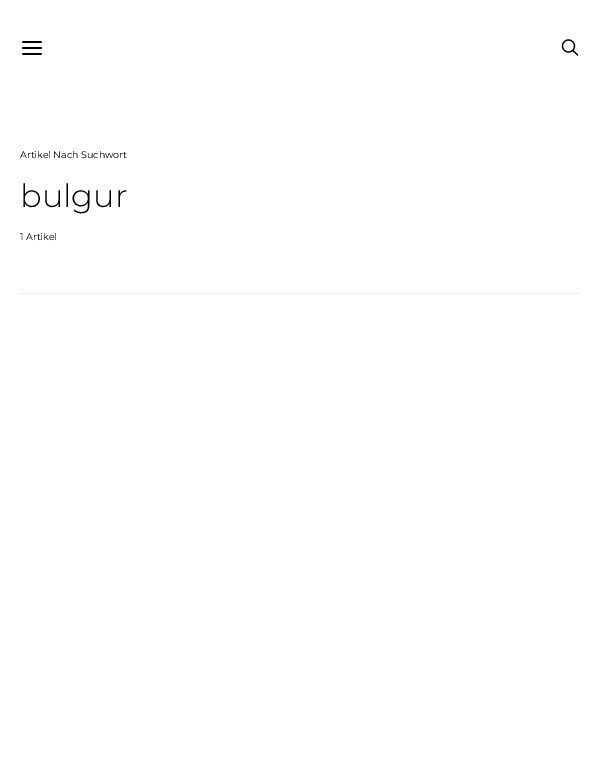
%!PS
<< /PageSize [599 764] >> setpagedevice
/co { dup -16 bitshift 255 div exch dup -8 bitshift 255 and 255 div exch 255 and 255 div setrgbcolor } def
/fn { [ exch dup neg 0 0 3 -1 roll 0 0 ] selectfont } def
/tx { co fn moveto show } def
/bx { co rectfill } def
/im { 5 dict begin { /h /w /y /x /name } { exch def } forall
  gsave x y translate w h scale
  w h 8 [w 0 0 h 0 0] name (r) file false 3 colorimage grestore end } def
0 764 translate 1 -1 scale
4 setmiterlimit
0 0 599 764 16#FFFFFF bx
(media/1.raw) 22 41 20 14 im
(media/2.raw) 561 39 18 17 im
20 293 559 1 16#E9ECEF bx
(Artikel Nach Suchwort) 20 158 /Montserrat-Regular 9.5 16#000000 tx
(bulgur) 20 207 /Montserrat-Light 32 16#000000 tx
(1 Artikel) 20 240 /Montserrat-Regular 9.5 16#000000 tx
showpage
